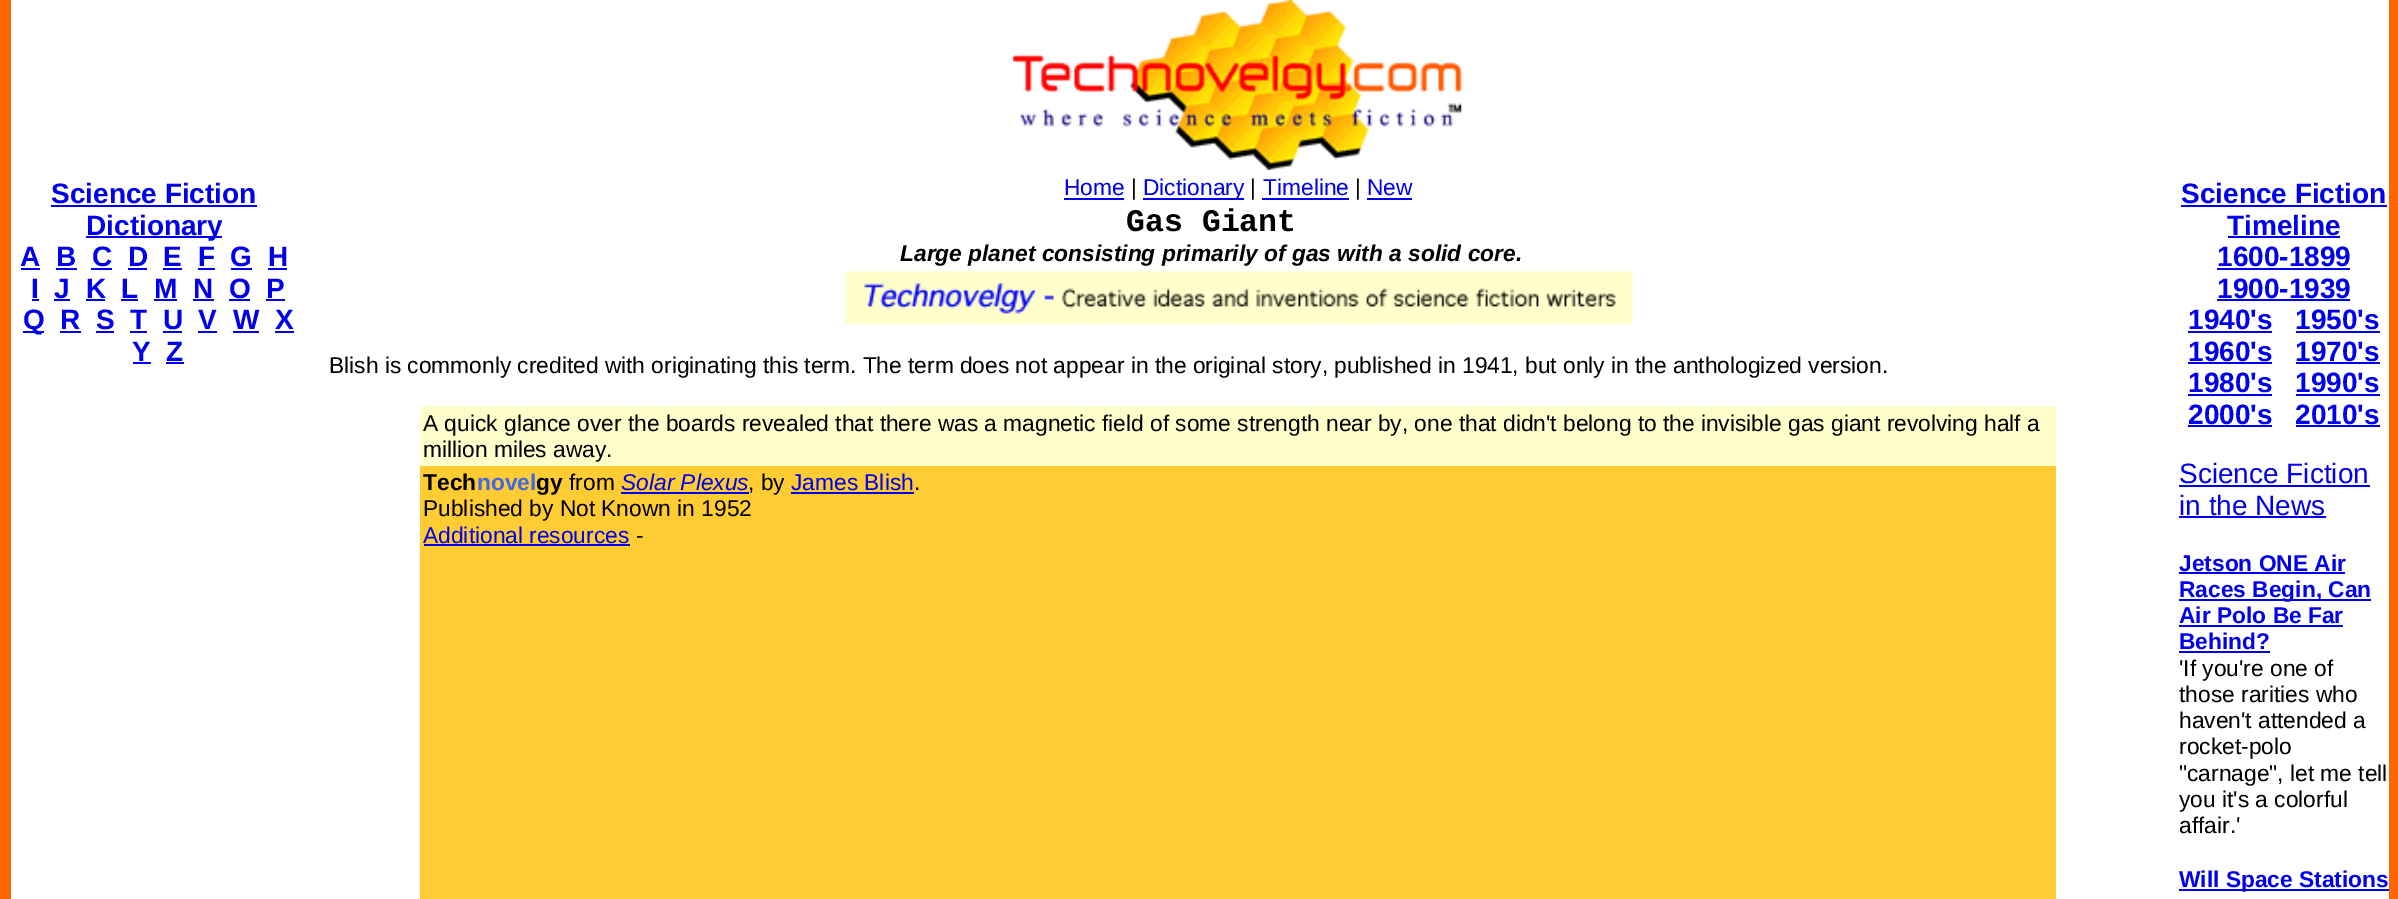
%!PS
<< /PageSize [2398 899] >> setpagedevice
/co { dup -16 bitshift 255 div exch dup -8 bitshift 255 and 255 div exch 255 and 255 div setrgbcolor } def
/fn { [ exch dup neg 0 0 3 -1 roll 0 0 ] selectfont } def
/tx { co fn moveto show } def
/bx { co rectfill } def
/im { 5 dict begin { /h /w /y /x /name } { exch def } forall
  gsave x y translate w h scale
  w h 8 [w 0 0 h 0 0] name (r) file false 3 colorimage grestore end } def
0 899 translate 1 -1 scale
4 setmiterlimit
0 0 2398 899 16#FFFFFF bx
0 0 11 899 16#FF6600 bx
51 205 206 2 16#0000EE bx
86 236 136 2 16#0000EE bx
21 268 19 2 16#0000EE bx
56 268 21 2 16#0000EE bx
91 268 21 2 16#0000EE bx
128 268 19 2 16#0000EE bx
163 268 19 2 16#0000EE bx
198 268 17 2 16#0000EE bx
231 268 21 2 16#0000EE bx
268 268 19 2 16#0000EE bx
32 299 7 2 16#0000EE bx
54 299 16 2 16#0000EE bx
86 299 19 2 16#0000EE bx
121 299 17 2 16#0000EE bx
154 299 23 2 16#0000EE bx
193 299 21 2 16#0000EE bx
229 299 21 2 16#0000EE bx
266 299 19 2 16#0000EE bx
23 331 21 2 16#0000EE bx
60 331 21 2 16#0000EE bx
96 331 18 2 16#0000EE bx
130 331 17 2 16#0000EE bx
163 331 19 2 16#0000EE bx
198 331 19 2 16#0000EE bx
233 331 26 2 16#0000EE bx
275 331 19 2 16#0000EE bx
133 362 18 2 16#0000EE bx
166 362 18 2 16#0000EE bx
(media/1.raw) 1013 0 449 170 im
1064 198 60 2 16#0000EE bx
1143 198 101 2 16#0000EE bx
1262 198 87 2 16#0000EE bx
1367 198 45 2 16#0000EE bx
(media/2.raw) 845 271 788 53 im
420 406 1636 60 16#FFFFCC bx
420 466 1636 433 16#FFCC33 bx
621 492 128 2 16#0000EE bx
791 492 123 2 16#0000EE bx
424 544 206 2 16#0000EE bx
2181 205 206 2 16#0000EE bx
2228 236 112 2 16#0000EE bx
2217 268 133 2 16#0000EE bx
2217 299 133 2 16#0000EE bx
2188 331 84 2 16#0000EE bx
2296 331 84 2 16#0000EE bx
2188 362 84 2 16#0000EE bx
2296 362 84 2 16#0000EE bx
2188 394 84 2 16#0000EE bx
2296 394 84 2 16#0000EE bx
2188 425 84 2 16#0000EE bx
2296 425 84 2 16#0000EE bx
2179 485 191 2 16#0000EE bx
2179 516 147 2 16#0000EE bx
2179 572 166 2 16#0000EE bx
2179 599 192 2 16#0000EE bx
2179 625 164 2 16#0000EE bx
2179 651 91 2 16#0000EE bx
2179 889 210 2 16#0000EE bx
2389 0 9 899 16#FF6600 bx
(Science Fiction) 51 203 /LiberationSans-Bold 28 16#0000EE tx
(Dictionary) 86 235 /LiberationSans-Bold 28 16#0000EE tx
(A) 20 266 /LiberationSans-Bold 28 16#0000EE tx
(B) 56 266 /LiberationSans-Bold 28 16#0000EE tx
(C) 92 266 /LiberationSans-Bold 28 16#0000EE tx
(D) 128 266 /LiberationSans-Bold 28 16#0000EE tx
(E) 163 266 /LiberationSans-Bold 28 16#0000EE tx
(F) 198 266 /LiberationSans-Bold 28 16#0000EE tx
(G) 230 266 /LiberationSans-Bold 28 16#0000EE tx
(H) 268 266 /LiberationSans-Bold 28 16#0000EE tx
(I) 31 298 /LiberationSans-Bold 28 16#0000EE tx
(J) 54 298 /LiberationSans-Bold 28 16#0000EE tx
(K) 86 298 /LiberationSans-Bold 28 16#0000EE tx
(L) 121 298 /LiberationSans-Bold 28 16#0000EE tx
(M) 154 298 /LiberationSans-Bold 28 16#0000EE tx
(N) 193 298 /LiberationSans-Bold 28 16#0000EE tx
(O) 229 298 /LiberationSans-Bold 28 16#0000EE tx
(P) 266 298 /LiberationSans-Bold 28 16#0000EE tx
(Q) 23 329 /LiberationSans-Bold 28 16#0000EE tx
(R) 60 329 /LiberationSans-Bold 28 16#0000EE tx
(S) 96 329 /LiberationSans-Bold 28 16#0000EE tx
(T) 130 329 /LiberationSans-Bold 28 16#0000EE tx
(U) 163 329 /LiberationSans-Bold 28 16#0000EE tx
(V) 198 329 /LiberationSans-Bold 28 16#0000EE tx
(W) 233 329 /LiberationSans-Bold 28 16#0000EE tx
(X) 275 329 /LiberationSans-Bold 28 16#0000EE tx
(Y) 132 361 /LiberationSans-Bold 28 16#0000EE tx
(Z) 166 361 /LiberationSans-Bold 28 16#0000EE tx
(Home) 1064 195 /LiberationSans-Regular 22.75 16#0000EE tx
(|) 1131 195 /LiberationSans-Regular 22.75 16#000000 tx
(Dictionary) 1143 195 /LiberationSans-Regular 22.75 16#0000EE tx
(|) 1250 195 /LiberationSans-Regular 22.75 16#000000 tx
(Timeline) 1263 195 /LiberationSans-Regular 22.75 16#0000EE tx
(|) 1355 195 /LiberationSans-Regular 22.75 16#000000 tx
(New) 1367 195 /LiberationSans-Regular 22.75 16#0000EE tx
(Gas Giant) 1126 231 /LiberationMono-Bold 31.5 16#000000 tx
(Large planet consisting primarily of gas with a solid core.) 900 261 /LiberationSans-BoldItalic 22.75 16#000000 tx
(Blish is commonly credited with originating this term. The term does not appear in the original story, published in 1941, but only in the anthologized version.) 329 373 /LiberationSans-Regular 22.75 16#000000 tx
(A quick glance over the boards revealed that there was a magnetic field of some strength near by, one that didn't belong to the invisible gas giant revolving half a) 423 431 /LiberationSans-Regular 22.75 16#000000 tx
(million miles away.) 423 457 /LiberationSans-Regular 22.75 16#000000 tx
(Tech) 423 490 /LiberationSans-Bold 22.75 16#000000 tx
(novel) 477 490 /LiberationSans-Bold 22.75 16#4169E1 tx
(gy) 536 490 /LiberationSans-Bold 22.75 16#000000 tx
(from) 569 490 /LiberationSans-Regular 22.75 16#000000 tx
(Solar Plexus) 621 490 /LiberationSans-Italic 22.75 16#0000EE tx
(, by) 748 490 /LiberationSans-Regular 22.75 16#000000 tx
(James Blish) 791 490 /LiberationSans-Regular 22.75 16#0000EE tx
(.) 914 490 /LiberationSans-Regular 22.75 16#000000 tx
(Published by Not Known in 1952) 423 516 /LiberationSans-Regular 22.75 16#000000 tx
(Additional resources) 423 543 /LiberationSans-Regular 22.75 16#0000EE tx
(-) 636 543 /LiberationSans-Regular 22.75 16#000000 tx
(Science Fiction) 2181 203 /LiberationSans-Bold 28 16#0000EE tx
(Timeline) 2227 235 /LiberationSans-Bold 28 16#0000EE tx
(1600-1899) 2217 266 /LiberationSans-Bold 28 16#0000EE tx
(1900-1939) 2217 298 /LiberationSans-Bold 28 16#0000EE tx
(1940's) 2188 329 /LiberationSans-Bold 28 16#0000EE tx
(1950's) 2295 329 /LiberationSans-Bold 28 16#0000EE tx
(1960's) 2188 361 /LiberationSans-Bold 28 16#0000EE tx
(1970's) 2295 361 /LiberationSans-Bold 28 16#0000EE tx
(1980's) 2188 392 /LiberationSans-Bold 28 16#0000EE tx
(1990's) 2295 392 /LiberationSans-Bold 28 16#0000EE tx
(2000's) 2188 424 /LiberationSans-Bold 28 16#0000EE tx
(2010's) 2295 424 /LiberationSans-Bold 28 16#0000EE tx
(Science Fiction) 2179 483 /LiberationSans-Regular 28 16#0000EE tx
(in the News) 2179 515 /LiberationSans-Regular 28 16#0000EE tx
(Jetson ONE Air) 2179 571 /LiberationSans-Bold 22.75 16#0000EE tx
(Races Begin, Can) 2179 597 /LiberationSans-Bold 22.75 16#0000EE tx
(Air Polo Be Far) 2179 623 /LiberationSans-Bold 22.75 16#0000EE tx
(Behind?) 2179 649 /LiberationSans-Bold 22.75 16#0000EE tx
('If you're one of) 2179 676 /LiberationSans-Regular 22.75 16#000000 tx
(those rarities who) 2179 702 /LiberationSans-Regular 22.75 16#000000 tx
(haven't attended a) 2179 728 /LiberationSans-Regular 22.75 16#000000 tx
(rocket-polo) 2179 754 /LiberationSans-Regular 22.75 16#000000 tx
("carnage", let me tell) 2179 781 /LiberationSans-Regular 22.75 16#000000 tx
(you it's a colorful) 2179 807 /LiberationSans-Regular 22.75 16#000000 tx
(affair.') 2179 833 /LiberationSans-Regular 22.75 16#000000 tx
(Will Space Stations) 2179 887 /LiberationSans-Bold 22.75 16#0000EE tx
showpage
